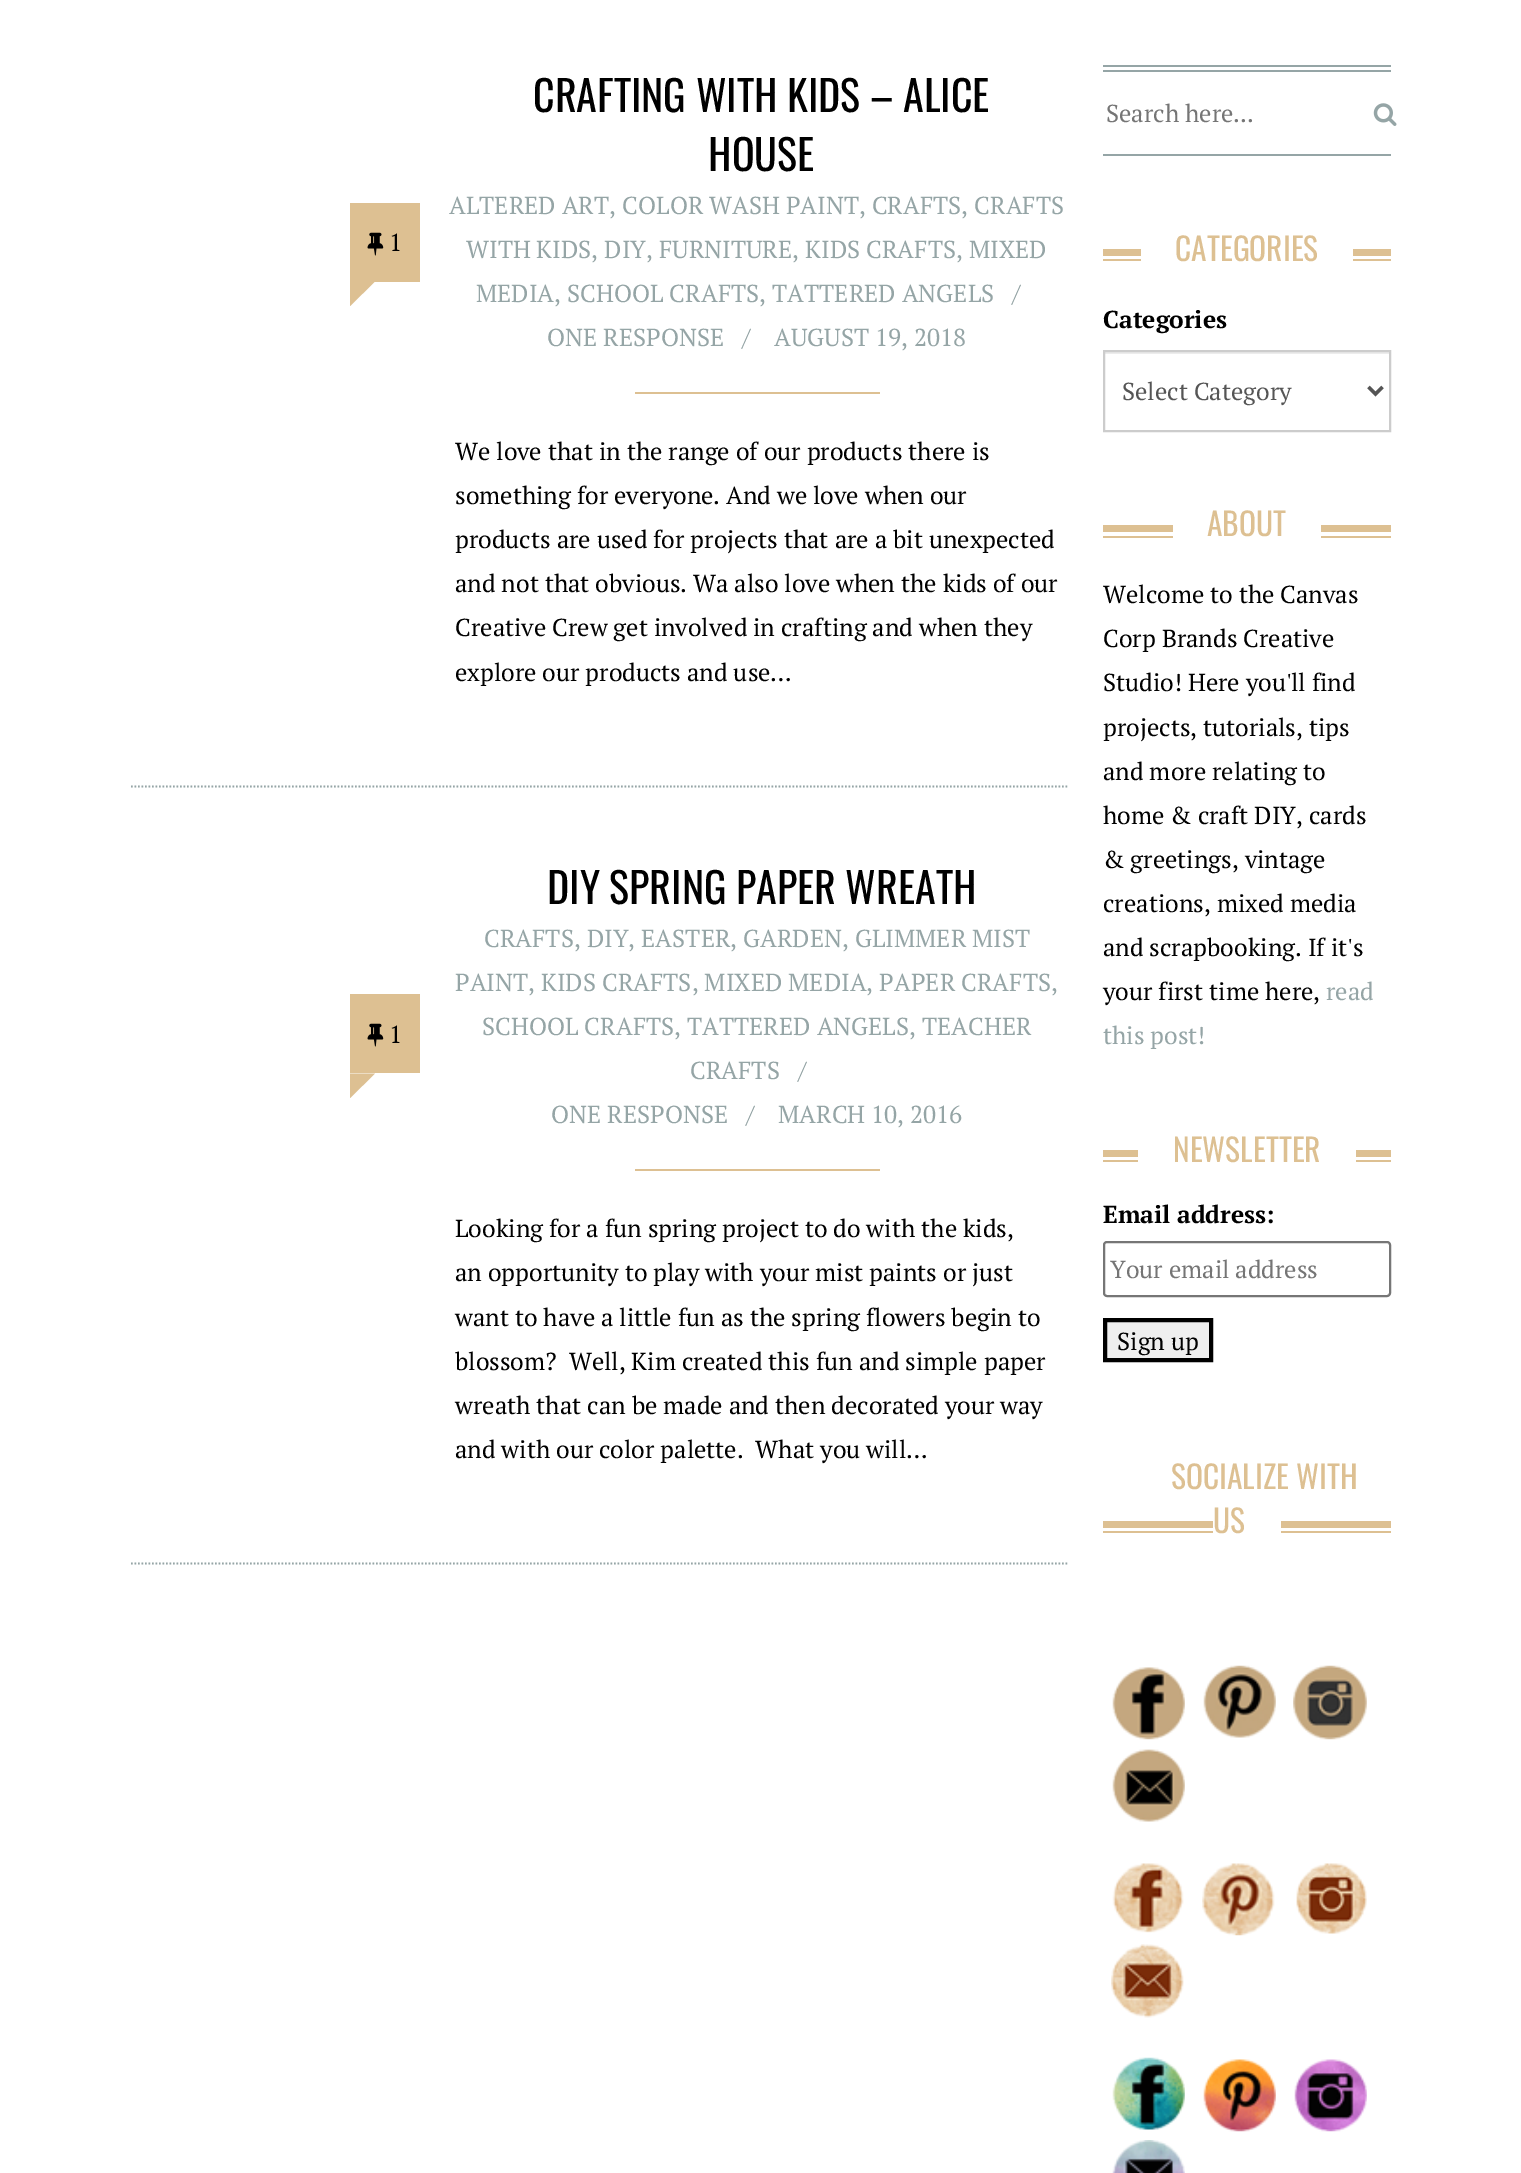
%!PS
<< /PageSize [1521 2173] >> setpagedevice
/mt/moveto load def
/li/lineto load def
/cp/closepath load def
/fl/fill load def
/st/stroke load def
/gs/gsave load def
/gr/grestore load def
/lw/setlinewidth load def
/co { dup -16 bitshift 255 div exch dup -8 bitshift 255 and 255 div exch 255 and 255 div setrgbcolor } def
/fn { [ exch dup neg 0 0 3 -1 roll 0 0 ] selectfont } def
/tx { co fn moveto show } def
/bx { co rectfill } def
/rr { 5 dict begin { /r /h /w /y /x } { exch def } forall
  x r add y moveto x w add y 2 copy h add r arct x w add y h add x 1 index r arct
  x y h add x y r arct x y 2 copy exch w add exch r arct closepath end } def
/im { 5 dict begin { /h /w /y /x /name } { exch def } forall
  gsave x y translate w h scale
  w h 8 [w 0 0 h 0 0] name (r) file false 3 colorimage grestore end } def
0 2173 translate 1 -1 scale
4 setmiterlimit
0 0 1521 2173 16#FFFFFF bx
16#95A5A6 co
1.8 lw
[1.75 1.75] 0 setdash
131 786.5 mt 1067.5 786.5 li st
350 203 70 79 16#DDC092 bx
(media/1.raw) 367 232 17 24 im
375 281.5 mt 350 306 li 350 281.5 li cp fl
635 392 245 2 16#DDC092 bx
16#95A5A6 co
131 1563.5 mt 1067.5 1563.5 li st
350 994 70 79 16#DDC092 bx
(media/1.raw) 367 1023 17 24 im
375 1073.5 mt 350 1098 li 350 1073.5 li cp fl
635 1169 245 2 16#DDC092 bx
1103 65 288 2 16#95A5A6 bx
1103 70 288 2 16#95A5A6 bx
1103 154 288 2 16#95A5A6 bx
(media/2.raw) 1373 103 24 23 im
1103 249 288 7 16#DDC092 bx
1103 259 288 2 16#DDC092 bx
1141 249 212 12 16#FFFFFF bx
1104 352 286 2 16#ECECEC bx
16#CCCCCC co
2 lw
[] 0 setdash
1104 351 286 80 rectstroke
16#555555 co
3.5 lw
1368.5 387 mt 1375.5 394 li 1382.5 387 li st
1103 525 288 7 16#DDC092 bx
1103 536 288 2 16#DDC092 bx
1173 525 148 13 16#FFFFFF bx
1103 1150 288 7 16#DDC092 bx
1103 1160 288 2 16#DDC092 bx
1138 1150 218 12 16#FFFFFF bx
16#767676 co
2 lw
1104 1242 286 54 3 rr st
16#EFEFEF co
1105 1320 mt 1211 1320 li 1211 1360 li 1105 1360 li cp gs fl gr
16#000000 co
4 lw
st
1103 1521 288 7 16#DDC092 bx
1103 1531 288 2 16#DDC092 bx
1213 1521 68 12 16#FFFFFF bx
(media/3.raw) 1112 1667 73 73 im
(media/4.raw) 1203 1665 73 73 im
(media/5.raw) 1293 1665 74 75 im
(media/6.raw) 1112 1749 73 73 im
(media/7.raw) 1112 1863 72 70 im
(media/8.raw) 1202 1863 73 73 im
(media/9.raw) 1296 1863 71 71 im
(media/10.raw) 1111 1944 73 74 im
(media/11.raw) 1112 2057 73 73 im
(media/12.raw) 1203 2059 73 73 im
(media/13.raw) 1294 2059 73 73 im
(media/14.raw) 1112 2140 73 33 im
(1) 389 251 /PTSerif-Regular 24.5 16#000000 tx
(CRAFTING WITH KIDS – ALICE) 533 112 /Oswald-Regular 42 16#000000 tx
(HOUSE) 708 171 /Oswald-Regular 42 16#000000 tx
(ALTERED ART, COLOR WASH PAINT, CRAFTS, CRAFTS) 449 214 /PTSerif-Regular 24.5 16#95A5A6 tx
(WITH KIDS, DIY, FURNITURE, KIDS CRAFTS, MIXED) 466 258 /PTSerif-Regular 24.5 16#95A5A6 tx
(MEDIA, SCHOOL CRAFTS, TATTERED ANGELS) 476 302 /PTSerif-Regular 24.5 16#95A5A6 tx
(/) 1012 302 /PTSerif-Regular 24.5 16#95A5A6 tx
(ONE RESPONSE) 547 346 /PTSerif-Regular 24.5 16#95A5A6 tx
(/) 742 346 /PTSerif-Regular 24.5 16#95A5A6 tx
(AUGUST 19, 2018) 774 346 /PTSerif-Regular 24.5 16#95A5A6 tx
(We love that in the range of our products there is) 455 460 /PTSerif-Regular 24.5 16#000000 tx
(something for everyone. And we love when our) 455 504 /PTSerif-Regular 24.5 16#000000 tx
(products are used for projects that are a bit unexpected) 455 548 /PTSerif-Regular 24.5 16#000000 tx
(and not that obvious. Wa also love when the kids of our) 455 592 /PTSerif-Regular 24.5 16#000000 tx
(Creative Crew get involved in crafting and when they) 455 636 /PTSerif-Regular 24.5 16#000000 tx
(explore our products and use…) 455 681 /PTSerif-Regular 24.5 16#000000 tx
(1) 389 1043 /PTSerif-Regular 24.5 16#000000 tx
(DIY SPRING PAPER WREATH) 547 904 /Oswald-Regular 42 16#000000 tx
(CRAFTS, DIY, EASTER, GARDEN, GLIMMER MIST) 484 947 /PTSerif-Regular 24.5 16#95A5A6 tx
(PAINT, KIDS CRAFTS, MIXED MEDIA, PAPER CRAFTS,) 455 991 /PTSerif-Regular 24.5 16#95A5A6 tx
(SCHOOL CRAFTS, TATTERED ANGELS, TEACHER) 482 1035 /PTSerif-Regular 24.5 16#95A5A6 tx
(CRAFTS) 690 1079 /PTSerif-Regular 24.5 16#95A5A6 tx
(/) 798 1079 /PTSerif-Regular 24.5 16#95A5A6 tx
(ONE RESPONSE) 551 1123 /PTSerif-Regular 24.5 16#95A5A6 tx
(/) 746 1123 /PTSerif-Regular 24.5 16#95A5A6 tx
(MARCH 10, 2016) 778 1123 /PTSerif-Regular 24.5 16#95A5A6 tx
(Looking for a fun spring project to do with the kids,) 455 1237 /PTSerif-Regular 24.5 16#000000 tx
(an opportunity to play with your mist paints or just) 455 1281 /PTSerif-Regular 24.5 16#000000 tx
(want to have a little fun as the spring flowers begin to) 455 1326 /PTSerif-Regular 24.5 16#000000 tx
(blossom?  Well, Kim created this fun and simple paper) 455 1370 /PTSerif-Regular 24.5 16#000000 tx
(wreath that can be made and then decorated your way) 455 1414 /PTSerif-Regular 24.5 16#000000 tx
(and with our color palette.  What you will…) 455 1458 /PTSerif-Regular 24.5 16#000000 tx
(Search here...) 1106 122 /PTSerif-Regular 24.5 16#757575 tx
(CATEGORIES) 1175 261 /Oswald-Regular 31.5 16#DDC092 tx
(Categories) 1103 328 /PTSerif-Bold 24.5 16#000000 tx
(Select Category) 1122 400 /PTSerif-Regular 24.5 16#555555 tx
(ABOUT) 1207 536 /Oswald-Regular 31.5 16#DDC092 tx
(Welcome to the Canvas) 1103 603 /PTSerif-Regular 24.5 16#000000 tx
(Corp Brands Creative) 1103 647 /PTSerif-Regular 24.5 16#000000 tx
(Studio! Here you'll find) 1103 691 /PTSerif-Regular 24.5 16#000000 tx
(projects, tutorials, tips) 1103 736 /PTSerif-Regular 24.5 16#000000 tx
(and more relating to) 1103 780 /PTSerif-Regular 24.5 16#000000 tx
(home & craft DIY, cards) 1103 824 /PTSerif-Regular 24.5 16#000000 tx
(& greetings, vintage) 1103 868 /PTSerif-Regular 24.5 16#000000 tx
(creations, mixed media) 1103 912 /PTSerif-Regular 24.5 16#000000 tx
(and scrapbooking. If it's) 1103 956 /PTSerif-Regular 24.5 16#000000 tx
(your first time here,) 1103 1000 /PTSerif-Regular 24.5 16#000000 tx
(read) 1326 1000 /PTSerif-Regular 24.5 16#95A5A6 tx
(this post!) 1103 1044 /PTSerif-Regular 24.5 16#95A5A6 tx
(NEWSLETTER) 1173 1162 /Oswald-Regular 31.5 16#DDC092 tx
(Email address:) 1103 1223 /PTSerif-Bold 24.5 16#000000 tx
(Your email address) 1110 1278 /PTSerif-Regular 24.5 16#757575 tx
(Sign up) 1117 1350 /PTSerif-Regular 24.5 16#000000 tx
(SOCIALIZE WITH) 1171 1489 /Oswald-Regular 31.5 16#DDC092 tx
(US) 1213 1533 /Oswald-Regular 31.5 16#DDC092 tx
showpage
